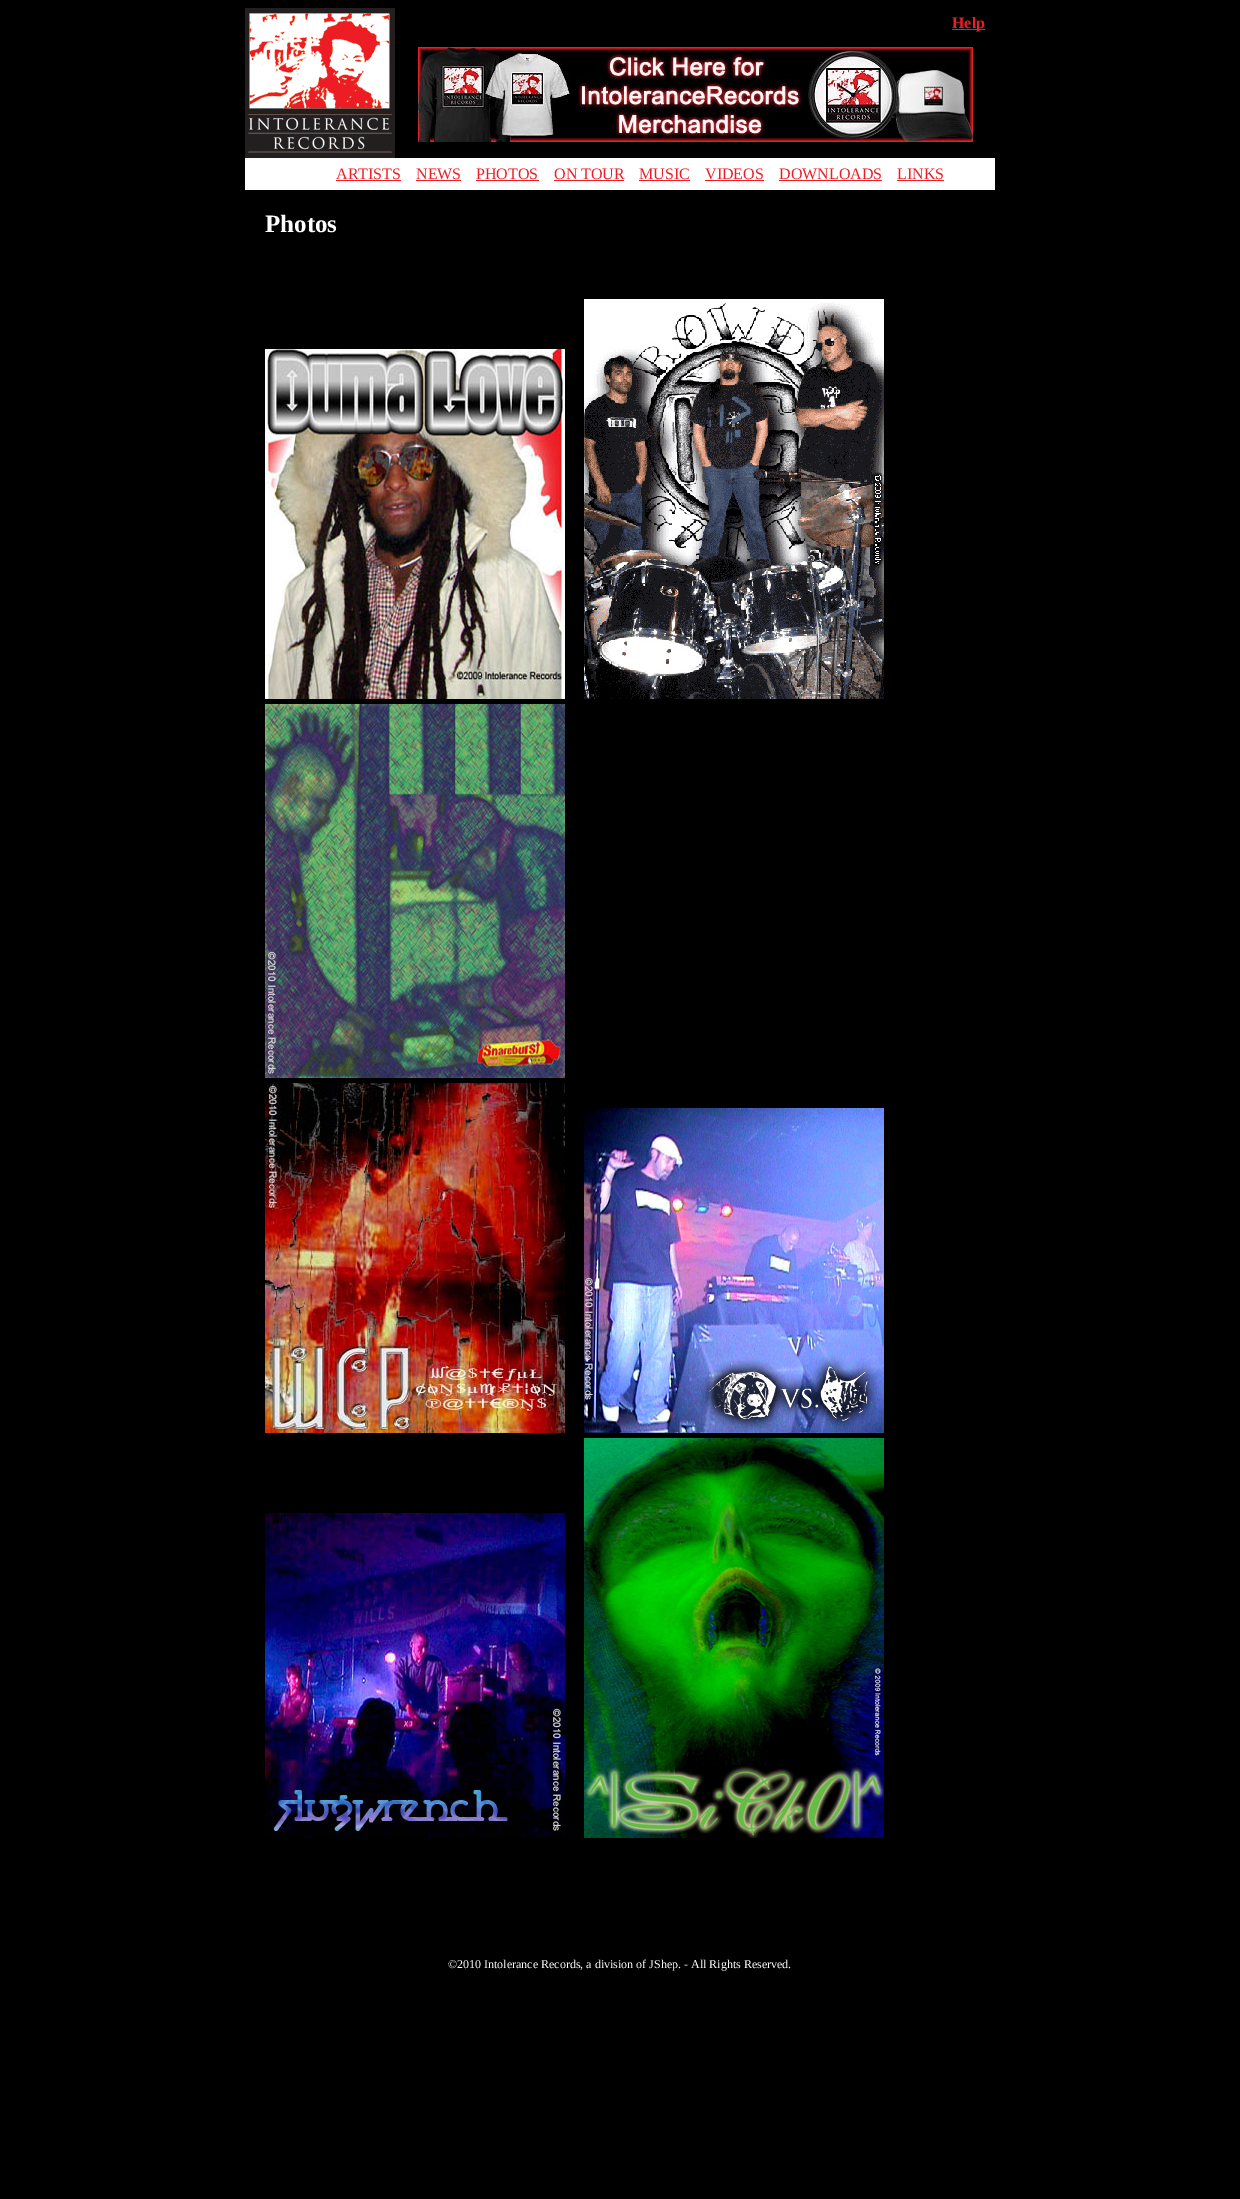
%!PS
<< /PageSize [1240 2199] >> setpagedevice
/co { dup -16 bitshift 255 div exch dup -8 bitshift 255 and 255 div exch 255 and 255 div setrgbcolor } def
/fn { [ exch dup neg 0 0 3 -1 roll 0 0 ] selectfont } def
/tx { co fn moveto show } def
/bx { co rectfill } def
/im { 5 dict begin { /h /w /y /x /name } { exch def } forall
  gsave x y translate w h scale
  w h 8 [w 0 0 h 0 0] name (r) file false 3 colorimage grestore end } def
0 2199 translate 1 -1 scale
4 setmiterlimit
0 0 1240 2199 16#000000 bx
(media/1.raw) 245 8 150 150 im
952 29 33 1 16#EC1D25 bx
(media/2.raw) 418 47 555 95 im
245 158 750 32 16#FFFFFF bx
336 180 65 1 16#EC1D25 bx
416 180 45 1 16#EC1D25 bx
476 180 63 1 16#EC1D25 bx
554 180 70 1 16#EC1D25 bx
639 180 51 1 16#EC1D25 bx
705 180 59 1 16#EC1D25 bx
779 180 103 1 16#EC1D25 bx
897 180 47 1 16#EC1D25 bx
(media/3.raw) 265 349 300 350 im
(media/4.raw) 584 299 300 400 im
(media/5.raw) 265 704 300 374 im
(media/6.raw) 265 1083 300 350 im
(media/7.raw) 584 1108 300 325 im
(media/8.raw) 265 1513 300 325 im
(media/9.raw) 584 1438 300 400 im
(Help) 952 28 /LiberationSerif-Bold 16 16#EC1D25 tx
(ARTISTS) 336 179 /LiberationSerif-Regular 16 16#EC1D25 tx
(NEWS) 416 179 /LiberationSerif-Regular 16 16#EC1D25 tx
(PHOTOS) 476 179 /LiberationSerif-Regular 16 16#EC1D25 tx
(ON TOUR) 554 179 /LiberationSerif-Regular 16 16#EC1D25 tx
(MUSIC) 639 179 /LiberationSerif-Regular 16 16#EC1D25 tx
(VIDEOS) 705 179 /LiberationSerif-Regular 16 16#EC1D25 tx
(DOWNLOADS) 779 179 /LiberationSerif-Regular 16 16#EC1D25 tx
(LINKS) 897 179 /LiberationSerif-Regular 16 16#EC1D25 tx
(Photos) 265 232 /LiberationSerif-Bold 25 16#FFFFFF tx
(©2010 Intolerance Records, a division of JShep. - All Rights Reserved.) 448 1968 /LiberationSerif-Regular 12 16#FFFFFF tx
showpage
